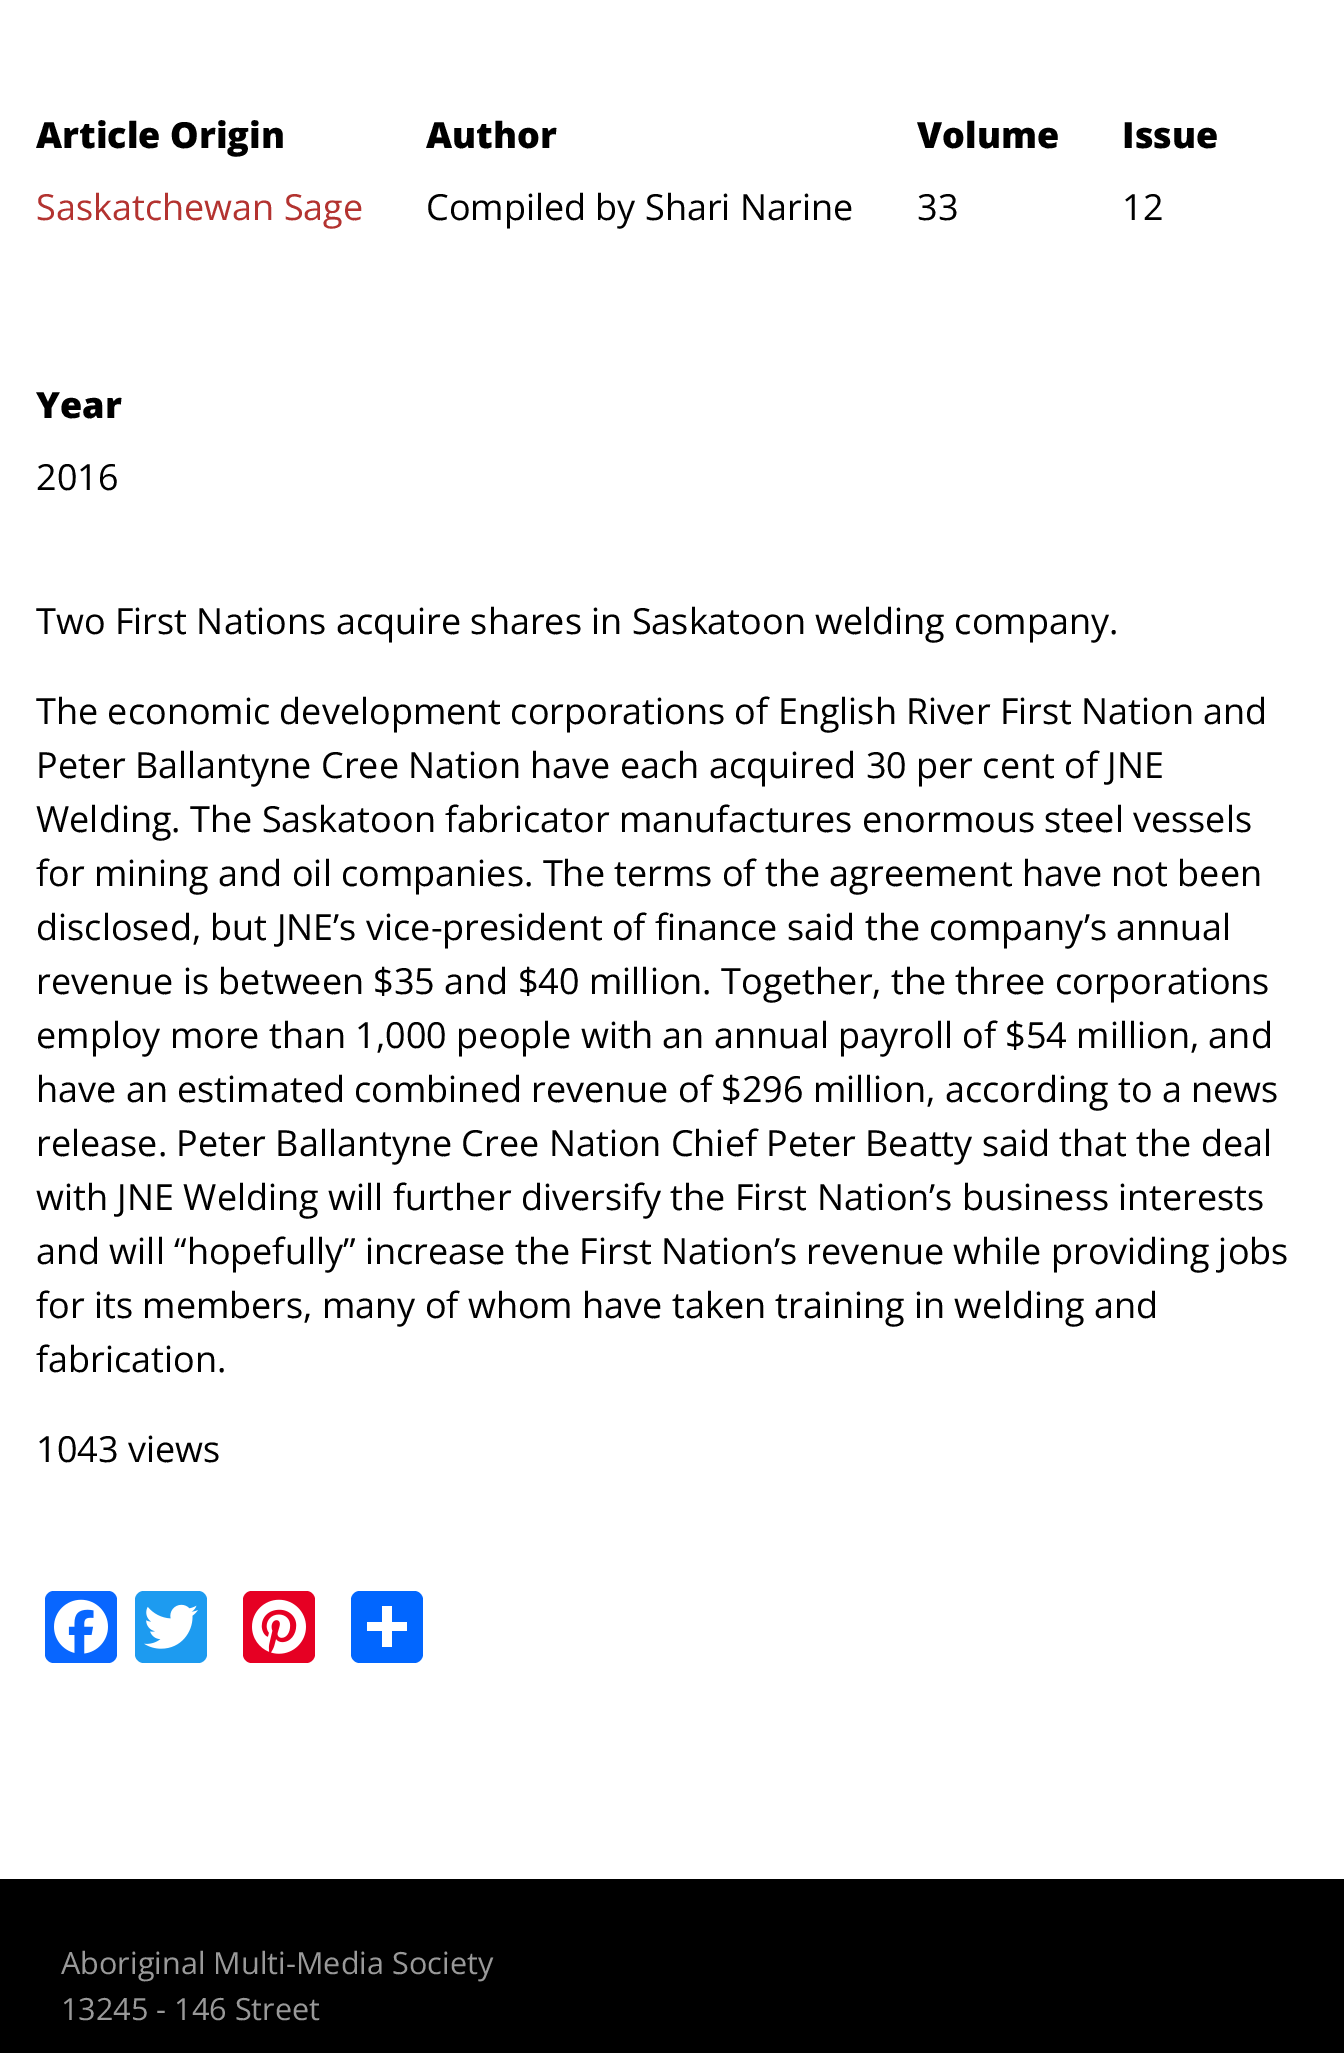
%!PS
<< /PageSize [1344 2053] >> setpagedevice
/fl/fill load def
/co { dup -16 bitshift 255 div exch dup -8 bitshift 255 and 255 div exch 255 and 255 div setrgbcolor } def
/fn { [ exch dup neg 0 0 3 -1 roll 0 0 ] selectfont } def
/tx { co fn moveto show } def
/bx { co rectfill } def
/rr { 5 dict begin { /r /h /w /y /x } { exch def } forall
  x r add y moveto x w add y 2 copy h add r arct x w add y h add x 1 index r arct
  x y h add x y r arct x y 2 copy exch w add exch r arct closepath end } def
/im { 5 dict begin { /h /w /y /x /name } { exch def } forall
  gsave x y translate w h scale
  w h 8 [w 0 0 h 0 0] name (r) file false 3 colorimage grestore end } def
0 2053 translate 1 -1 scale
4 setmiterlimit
0 0 1344 2053 16#FFFFFF bx
16#0866FF co
45 1591 72 72 9 rr fl
(media/1.raw) 54 1599 54 55 im
16#1D9BF0 co
135 1591 72 72 9 rr fl
(media/2.raw) 144 1604 54 45 im
16#E60023 co
243 1591 72 72 9 rr fl
(media/3.raw) 252 1599 54 55 im
16#0166FF co
351 1591 72 72 9 rr fl
382 1606 10 41 16#FFFFFF bx
367 1622 40 9 16#FFFFFF bx
0 1879 1344 174 16#000000 bx
(Article Origin) 36 148 /OpenSans-ExtraBold 36 16#000000 tx
(Saskatchewan Sage) 36 220 /OpenSans-Regular 36 16#B33330 tx
(Author) 426 148 /OpenSans-ExtraBold 36 16#000000 tx
(Compiled by Shari Narine) 426 220 /OpenSans-Regular 36 16#000000 tx
(Volume) 917 148 /OpenSans-ExtraBold 36 16#000000 tx
(33) 917 220 /OpenSans-Regular 36 16#000000 tx
(Issue) 1122 148 /OpenSans-ExtraBold 36 16#000000 tx
(12) 1122 220 /OpenSans-Regular 36 16#000000 tx
(Year) 36 418 /OpenSans-ExtraBold 36 16#000000 tx
(2016) 36 490 /OpenSans-Regular 36 16#000000 tx
(Two First Nations acquire shares in Saskatoon welding company.) 36 634 /OpenSans-Regular 36 16#000000 tx
(The economic development corporations of English River First Nation and) 36 724 /OpenSans-Regular 36 16#000000 tx
(Peter Ballantyne Cree Nation have each acquired 30 per cent of JNE) 36 778 /OpenSans-Regular 36 16#000000 tx
(Welding. The Saskatoon fabricator manufactures enormous steel vessels) 36 832 /OpenSans-Regular 36 16#000000 tx
(for mining and oil companies. The terms of the agreement have not been) 36 886 /OpenSans-Regular 36 16#000000 tx
(disclosed, but JNE’s vice-president of finance said the company’s annual) 36 940 /OpenSans-Regular 36 16#000000 tx
(revenue is between $35 and $40 million. Together, the three corporations) 36 994 /OpenSans-Regular 36 16#000000 tx
(employ more than 1,000 people with an annual payroll of $54 million, and) 36 1048 /OpenSans-Regular 36 16#000000 tx
(have an estimated combined revenue of $296 million, according to a news) 36 1102 /OpenSans-Regular 36 16#000000 tx
(release. Peter Ballantyne Cree Nation Chief Peter Beatty said that the deal) 36 1156 /OpenSans-Regular 36 16#000000 tx
(with JNE Welding will further diversify the First Nation’s business interests) 36 1210 /OpenSans-Regular 36 16#000000 tx
(and will “hopefully” increase the First Nation’s revenue while providing jobs) 36 1264 /OpenSans-Regular 36 16#000000 tx
(for its members, many of whom have taken training in welding and) 36 1318 /OpenSans-Regular 36 16#000000 tx
(fabrication.) 36 1372 /OpenSans-Regular 36 16#000000 tx
(1043 views) 36 1462 /OpenSans-Regular 36 16#000000 tx
(Aboriginal Multi-Media Society) 61 1974 /OpenSans-Regular 30.6 16#999999 tx
(13245 - 146 Street) 61 2020 /OpenSans-Regular 30.6 16#999999 tx
showpage
